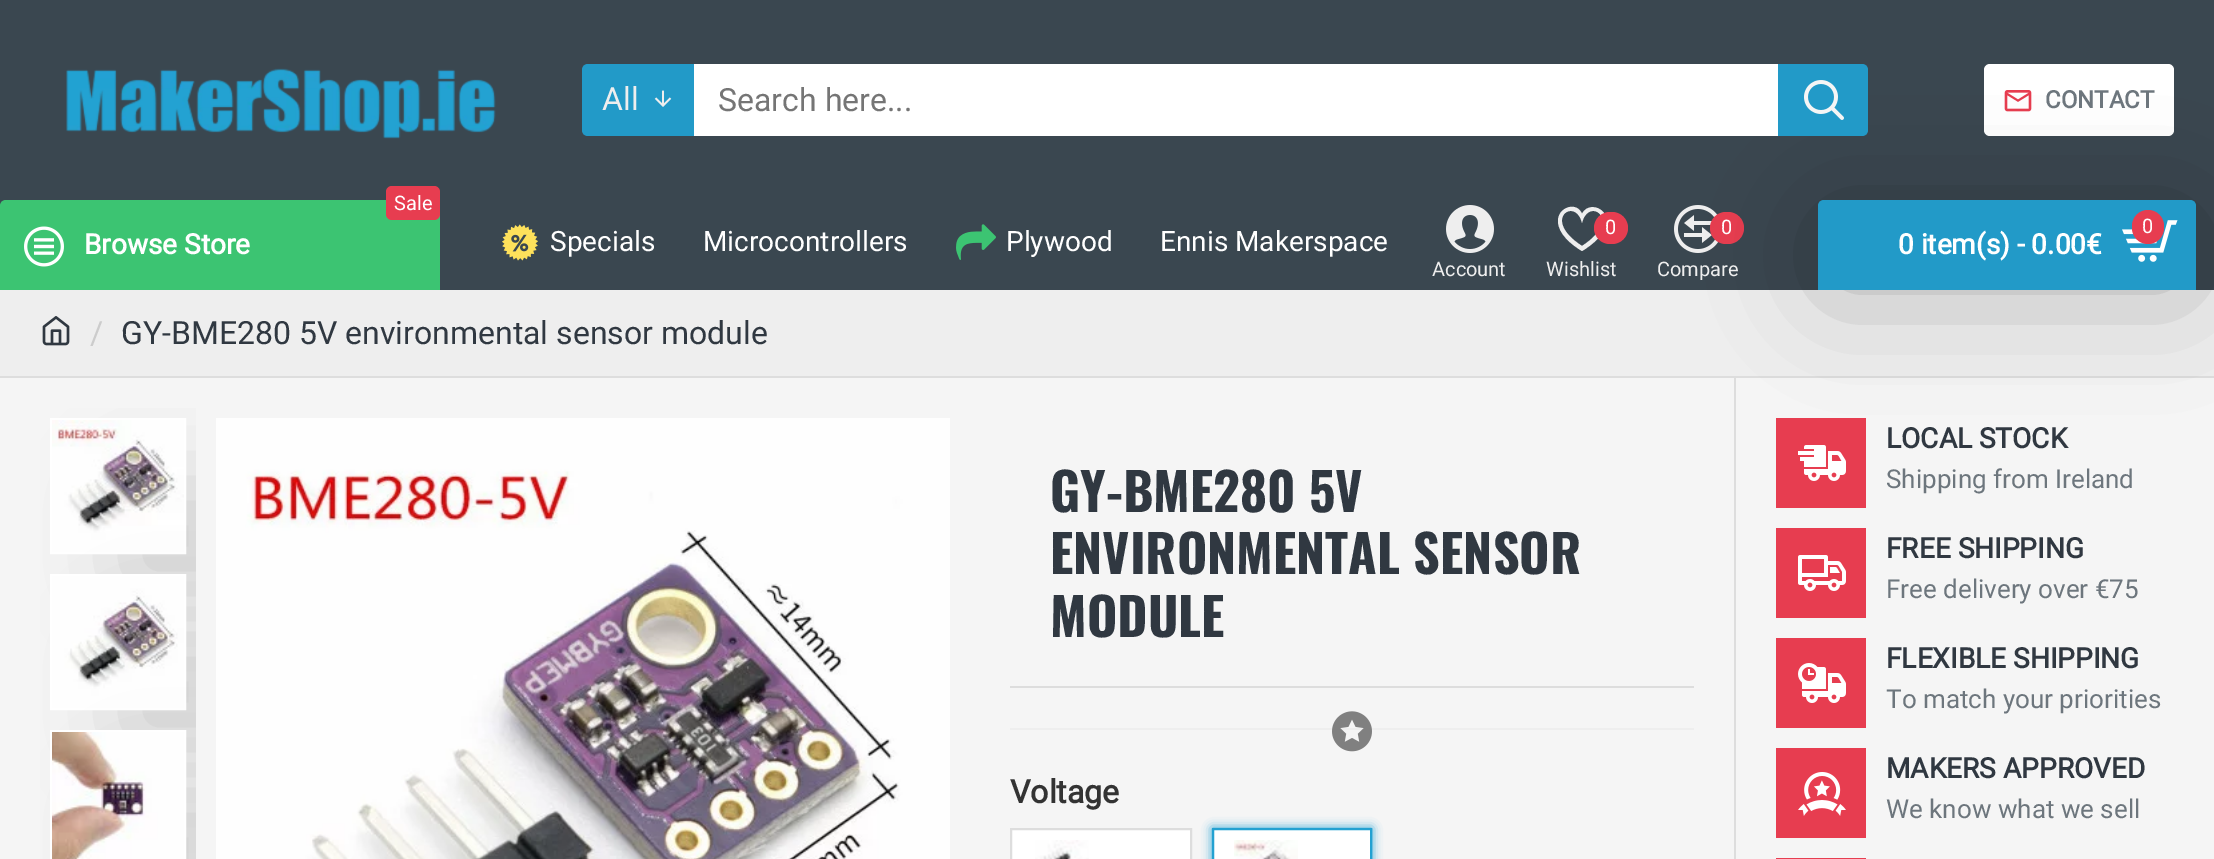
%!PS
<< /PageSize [2214 859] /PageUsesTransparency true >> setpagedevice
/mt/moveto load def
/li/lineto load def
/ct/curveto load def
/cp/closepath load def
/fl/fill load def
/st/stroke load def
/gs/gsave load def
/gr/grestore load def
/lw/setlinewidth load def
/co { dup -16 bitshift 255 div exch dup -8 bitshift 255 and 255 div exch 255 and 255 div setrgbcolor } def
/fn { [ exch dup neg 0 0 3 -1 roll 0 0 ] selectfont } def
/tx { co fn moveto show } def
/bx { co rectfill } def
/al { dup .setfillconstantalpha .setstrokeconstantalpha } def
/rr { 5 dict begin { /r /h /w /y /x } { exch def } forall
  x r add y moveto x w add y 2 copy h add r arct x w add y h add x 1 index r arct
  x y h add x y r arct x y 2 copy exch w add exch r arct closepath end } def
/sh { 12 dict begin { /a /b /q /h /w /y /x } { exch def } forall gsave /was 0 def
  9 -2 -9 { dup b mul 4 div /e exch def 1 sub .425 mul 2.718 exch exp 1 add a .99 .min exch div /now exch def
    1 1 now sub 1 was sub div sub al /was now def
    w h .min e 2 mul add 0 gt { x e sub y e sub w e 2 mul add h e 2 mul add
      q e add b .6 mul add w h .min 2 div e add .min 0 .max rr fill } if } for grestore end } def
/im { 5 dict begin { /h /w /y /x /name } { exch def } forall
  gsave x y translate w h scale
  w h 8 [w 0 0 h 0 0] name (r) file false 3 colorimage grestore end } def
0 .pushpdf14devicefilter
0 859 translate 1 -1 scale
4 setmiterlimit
0 0 2214 859 16#F5F5F5 bx
0 0 2214 290 16#3A4750 bx
(media/1.raw) 66 68 430 71 im
16#229AC8 co
588 64 mt 694 64 li 694 136 li 588 136 li 584.5 136 582 133.5 582 130 ct 582 70 li 582 66.5 584.5 64 588 64 ct cp fl
(media/2.raw) 654 90 18 17 im
16#FFFFFF co
1984 64 190 72 6 rr fl
(media/4.raw) 2004 90 28 22 im
(media/9.raw) 1674 205 45 48 im
16#E73D50 co
1710 212 34 32 16 rr fl
0 290 2214 86 16#EEEEEE bx
0 376 2214 2 16#DDDDDD bx
1734 378 2 481 16#DDDDDD bx
1776 418 90 90 16#E73D50 bx
(media/19.raw) 1798 445 48 36 im
16#000000 co
1838 230 338 50 0 60 .3 sh
694 64 1084 72 16#FFFFFF bx
16#229AC8 co
1778 64 mt 1862 64 li 1865.5 64 1868 66.5 1868 70 ct 1868 130 li 1868 133.5 1865.5 136 1862 136 ct 1778 136 li cp fl
(media/3.raw) 1804 80 40 40 im
16#3CC472 co
6 200 mt 434 200 li 437.5 200 440 202.5 440 206 ct 440 290 li 0 290 li 0 206 li 0 202.5 2.5 200 6 200 ct cp fl
16#E73D50 co
386 186 54 34 6 rr fl
(media/5.raw) 24 226 40 41 im
(media/6.raw) 502 224 36 37 im
(media/7.raw) 956 224 40 36 im
(media/8.raw) 1446 205 48 48 im
16#EEEEEE co
1582 223 mt 1588 196 1624 219 1582 246 ct 1540 219 1576 196 1582 223 ct cp 1558 221 mt 1558 234 1572 245 1582 251 ct 1592 245 1606 234 1606 221 ct 1606 218 1605 215 1604 213 ct 1598 205 1586 205 1582 214 ct 1577 201 1558 207 1558 221 ct cp fl
16#E73D50 co
1594 212 34 32 16 rr fl
16#229AC8 co
1824 200 mt 2190 200 li 2193.5 200 2196 202.5 2196 206 ct 2196 290 li 1818 290 li 1818 206 li 1818 202.5 1820.5 200 1824 200 ct cp fl
(media/10.raw) 2122 220 56 42 im
16#E73D50 co
2132 210 32 34 16 rr fl
(media/11.raw) 42 316 28 30 im
gs
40 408 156 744 rectclip
16#000000 co
130 488 96 96 0 50 .15 sh
gr
16#FFFFFF co
2 lw
51 419 134 134 rectstroke
(media/12.raw) 52 420 132 132 im
gs
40 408 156 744 rectclip
16#000000 co
130 644 96 96 0 50 .15 sh
gr
51 575 134 134 rectstroke
(media/13.raw) 52 576 132 132 im
gs
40 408 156 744 rectclip
16#000000 co
130 800 96 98 0 50 .15 sh
gr
51 731 134 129 rectstroke
(media/14.raw) 52 732 132 127 im
(media/15.raw) 216 418 734 441 im
1010 686 684 2 16#DDDDDD bx
1010 728 684 2 16#EEEEEE bx
(media/16.raw) 1332 711 40 41 im
16#FFFFFF co
1011 829 mt 1191 829 li 1191 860 li 1011 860 li cp gs fl gr
16#DDDDDD co
st
(media/17.raw) 1035 840 54 19 im
16#23A1D1 co
1212 828 160 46 0 5 1 sh
16#FFFFFF co
1213 829 mt 1371 829 li 1371 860 li 1213 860 li cp gs fl gr
16#23A1D1 co
st
(media/18.raw) 1234 840 64 19 im
1776 528 90 90 16#E73D50 bx
(media/20.raw) 1798 555 48 36 im
1776 638 90 90 16#E73D50 bx
(media/21.raw) 1798 663 48 40 im
1776 748 90 90 16#E73D50 bx
(media/22.raw) 1798 772 48 44 im
1776 858 90 1 16#E73D50 bx
(All) 602 110 /Roboto-Regular 32 16#EEEEEE tx
(Search here...) 718 111 /Roboto-Regular 32 16#757575 tx
(CONTACT) 2045 108 /Roboto-Bold 24 16#6D767D tx
(Sale) 394 210 /Roboto-Regular 20 16#FFFFFF tx
(Browse Store) 84 254 /Roboto-Bold 28 16#FFFFFF tx
(Specials) 550 251 /Roboto-Regular 28 16#FFFFFF tx
(Microcontrollers) 703 251 /Roboto-Regular 28 16#FFFFFF tx
(Plywood) 1006 251 /Roboto-Regular 28 16#FFFFFF tx
(Ennis Makerspace) 1160 251 /Roboto-Regular 28 16#FFFFFF tx
(Account) 1432 276 /Roboto-Regular 20 16#EEEEEE tx
(0) 1605 234 /Roboto-Regular 20 16#FFFFFF tx
(Wishlist) 1546 276 /Roboto-Regular 20 16#EEEEEE tx
(0) 1721 234 /Roboto-Regular 20 16#FFFFFF tx
(Compare) 1657 276 /Roboto-Regular 20 16#EEEEEE tx
(0) 2142 233 /Roboto-Regular 20 16#FFFFFF tx
(0 item\(s\) - 0.00€) 1898 254 /Roboto-Bold 28 16#FFFFFF tx
(/) 90 344 /Roboto-Regular 32 16#CCCCCC tx
(GY-BME280 5V environmental sensor module) 121 344 /Roboto-Regular 32 16#303841 tx
(GY-BME280 5V) 1050 512 /Oswald-Bold 52 16#303841 tx
(ENVIRONMENTAL SENSOR) 1050 574 /Oswald-Bold 52 16#303841 tx
(MODULE) 1050 637 /Oswald-Bold 52 16#303841 tx
(Voltage) 1010 803 /Roboto-Bold 32 16#333333 tx
(LOCAL STOCK) 1886 448 /Roboto-Bold 28 16#303841 tx
(Shipping from Ireland) 1886 488 /Roboto-Regular 26 16#6D767D tx
(FREE SHIPPING) 1886 558 /Roboto-Bold 28 16#303841 tx
(Free delivery over €75) 1886 598 /Roboto-Regular 26 16#6D767D tx
(FLEXIBLE SHIPPING) 1886 668 /Roboto-Bold 28 16#303841 tx
(To match your priorities) 1886 708 /Roboto-Regular 26 16#6D767D tx
(MAKERS APPROVED) 1886 778 /Roboto-Bold 28 16#303841 tx
(We know what we sell) 1886 818 /Roboto-Regular 26 16#6D767D tx
.poppdf14devicefilter showpage
